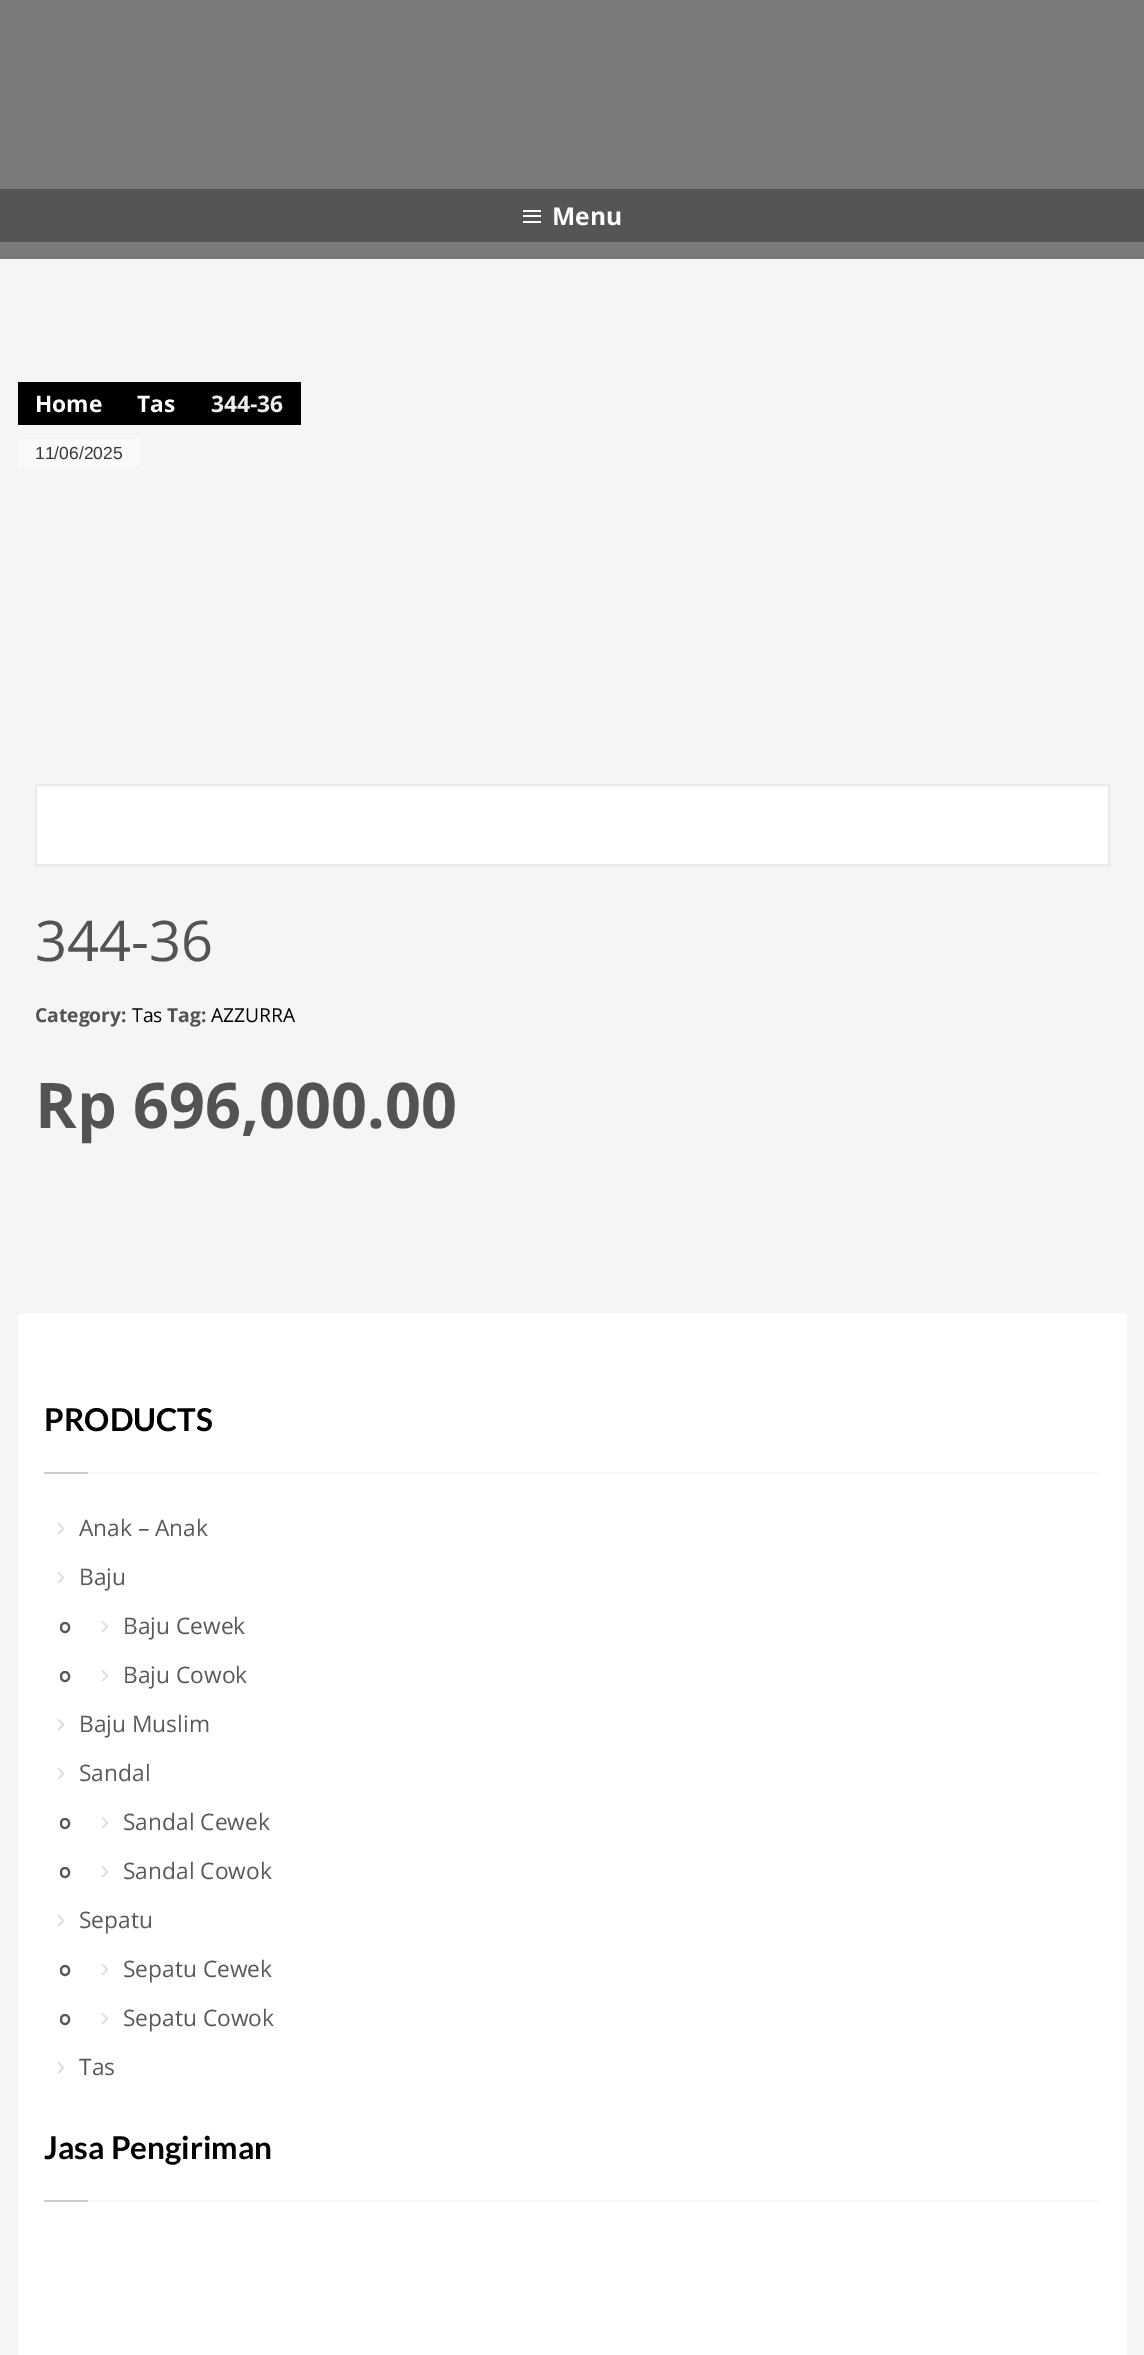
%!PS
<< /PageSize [1144 2355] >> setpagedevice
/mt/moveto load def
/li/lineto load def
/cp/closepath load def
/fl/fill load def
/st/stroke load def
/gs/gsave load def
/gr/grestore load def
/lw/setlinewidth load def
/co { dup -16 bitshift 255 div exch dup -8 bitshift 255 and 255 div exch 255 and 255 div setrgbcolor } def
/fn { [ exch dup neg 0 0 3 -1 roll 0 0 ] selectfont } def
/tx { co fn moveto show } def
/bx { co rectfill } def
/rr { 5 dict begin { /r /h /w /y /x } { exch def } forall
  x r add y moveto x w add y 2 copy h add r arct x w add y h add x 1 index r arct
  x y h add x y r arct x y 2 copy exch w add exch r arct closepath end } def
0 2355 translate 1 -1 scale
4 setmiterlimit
0 0 1144 2355 16#F5F5F5 bx
0 0 1144 259 16#7A7A7A bx
0 189 1144 53 16#555555 bx
523 210 18 2 16#FFFFFF bx
523 215 18 2 16#FFFFFF bx
523 221 18 2 16#FFFFFF bx
18 382 283 43 16#000000 bx
18 439 122 28 16#FAFAFA bx
16#FFFFFF co
36 785 mt 1109 785 li 1109 865 li 36 865 li cp gs fl gr
16#EAEAEA co
2 lw
st
16#FFFFFF co
18 1313 1109 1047 5 rr fl
44 1472 44 2 16#CBCBCB bx
88 1472 1013 2 16#F9F9F9 bx
16#535353 co
61 1623 8 9 4 rr st
61 1672 8 9 4 rr st
61 1819 8 9 4 rr st
61 1868 8 9 4 rr st
61 1966 8 9 4 rr st
61 2015 8 9 4 rr st
44 2200 44 2 16#CBCBCB bx
88 2200 1013 2 16#F9F9F9 bx
(Menu) 552 225 /OpenSans-Bold 24.5 16#FFFFFF tx
(Home) 35 412 /OpenSans-Bold 22.75 16#FFFFFF tx
(Tas) 137 412 /OpenSans-Bold 22.75 16#FFFFFF tx
(344-36) 211 412 /OpenSans-Bold 22.75 16#EEEEEE tx
(11/06/2025) 35 459 /LiberationSans-Regular 17.5 16#383838 tx
(344-36) 35 961 /OpenSans-Regular 56 16#535353 tx
(Category:) 35 1022 /OpenSans-Bold 19.25 16#535353 tx
(Tas) 132 1022 /OpenSans-Regular 19.25 16#000000 tx
(Tag:) 167 1022 /OpenSans-Bold 19.25 16#535353 tx
(AZZURRA) 211 1022 /OpenSans-Regular 19.25 16#000000 tx
(Rp 696,000.00) 35 1128 /OpenSans-Bold 63 16#535353 tx
(PRODUCTS) 44 1431 /Lato-Bold 31.5 16#000000 tx
(›) 56 1536 /LiberationSans-Regular 28 16#DDDDDD tx
(Anak – Anak) 79 1536 /OpenSans-Regular 22.75 16#595959 tx
(›) 56 1585 /LiberationSans-Regular 28 16#DDDDDD tx
(Baju) 79 1585 /OpenSans-Regular 22.75 16#595959 tx
(›) 100 1634 /LiberationSans-Regular 28 16#DDDDDD tx
(Baju Cewek) 123 1634 /OpenSans-Regular 22.75 16#595959 tx
(›) 100 1683 /LiberationSans-Regular 28 16#DDDDDD tx
(Baju Cowok) 123 1683 /OpenSans-Regular 22.75 16#595959 tx
(›) 56 1732 /LiberationSans-Regular 28 16#DDDDDD tx
(Baju Muslim) 79 1732 /OpenSans-Regular 22.75 16#595959 tx
(›) 56 1781 /LiberationSans-Regular 28 16#DDDDDD tx
(Sandal) 79 1781 /OpenSans-Regular 22.75 16#595959 tx
(›) 100 1830 /LiberationSans-Regular 28 16#DDDDDD tx
(Sandal Cewek) 123 1830 /OpenSans-Regular 22.75 16#595959 tx
(›) 100 1879 /LiberationSans-Regular 28 16#DDDDDD tx
(Sandal Cowok) 123 1879 /OpenSans-Regular 22.75 16#595959 tx
(›) 56 1928 /LiberationSans-Regular 28 16#DDDDDD tx
(Sepatu) 79 1928 /OpenSans-Regular 22.75 16#595959 tx
(›) 100 1977 /LiberationSans-Regular 28 16#DDDDDD tx
(Sepatu Cewek) 123 1977 /OpenSans-Regular 22.75 16#595959 tx
(›) 100 2026 /LiberationSans-Regular 28 16#DDDDDD tx
(Sepatu Cowok) 123 2026 /OpenSans-Regular 22.75 16#595959 tx
(›) 56 2075 /LiberationSans-Regular 28 16#DDDDDD tx
(Tas) 79 2075 /OpenSans-Regular 22.75 16#595959 tx
(Jasa Pengiriman) 44 2159 /Lato-Bold 31.5 16#000000 tx
showpage
